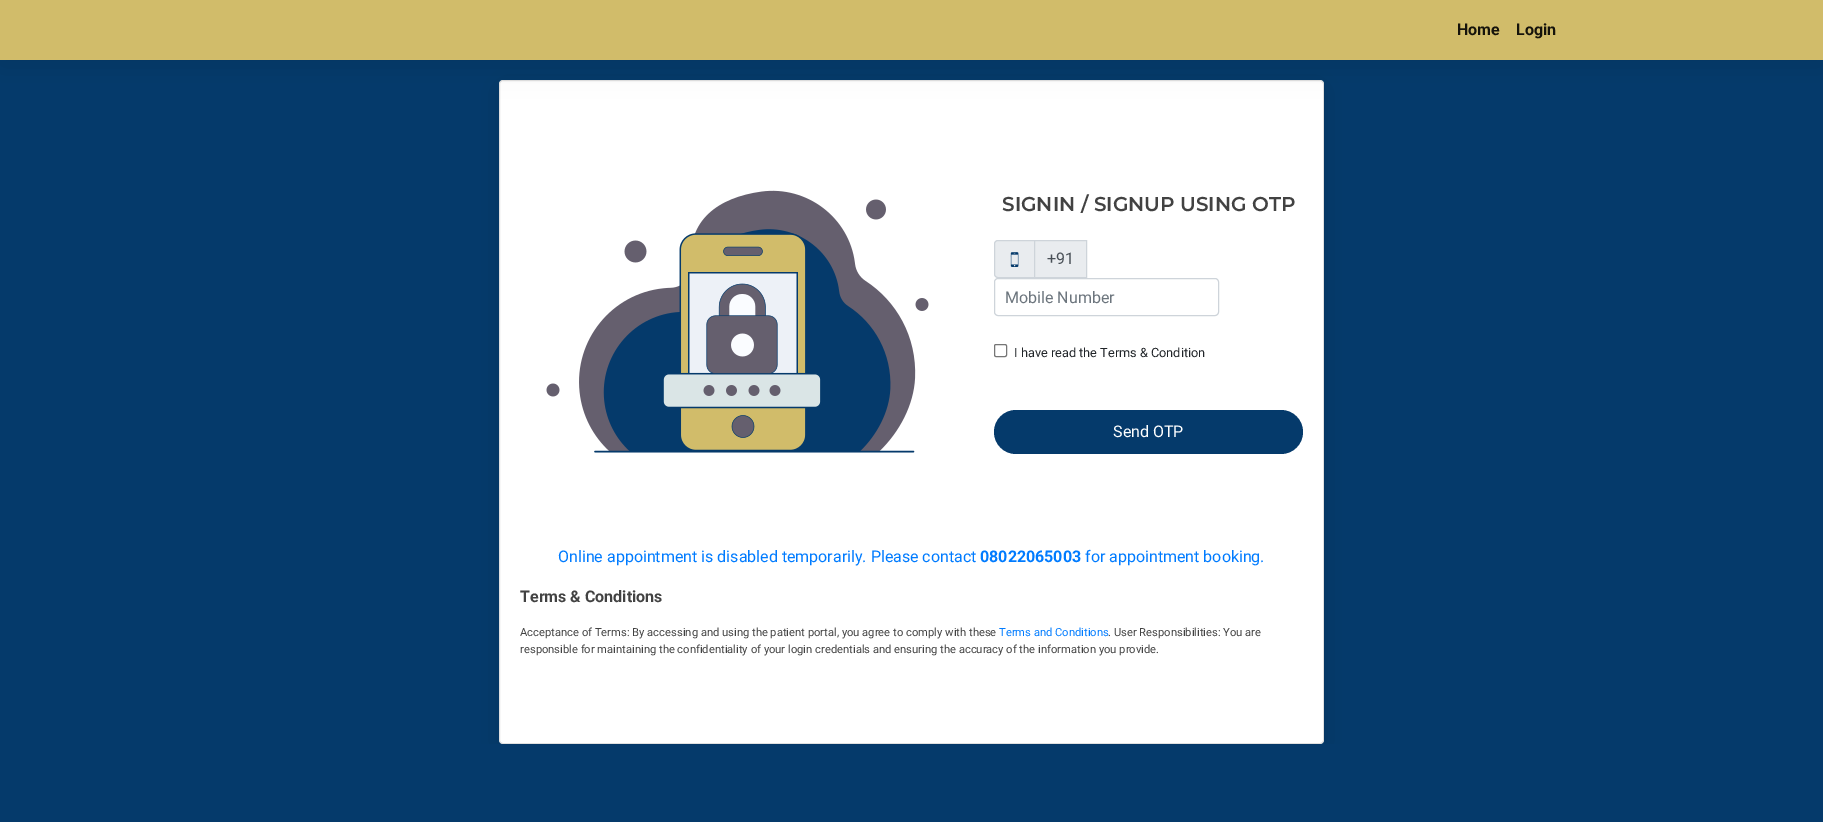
%!PS
<< /PageSize [1823 822] /PageUsesTransparency true >> setpagedevice
/mt/moveto load def
/li/lineto load def
/ct/curveto load def
/cp/closepath load def
/fl/fill load def
/st/stroke load def
/gs/gsave load def
/gr/grestore load def
/co { dup -16 bitshift 255 div exch dup -8 bitshift 255 and 255 div exch 255 and 255 div setrgbcolor } def
/fn { [ exch dup neg 0 0 3 -1 roll 0 0 ] selectfont } def
/tx { co fn moveto show } def
/bx { co rectfill } def
/al { dup .setfillconstantalpha .setstrokeconstantalpha } def
/rr { 5 dict begin { /r /h /w /y /x } { exch def } forall
  x r add y moveto x w add y 2 copy h add r arct x w add y h add x 1 index r arct
  x y h add x y r arct x y 2 copy exch w add exch r arct closepath end } def
/sh { 12 dict begin { /a /b /q /h /w /y /x } { exch def } forall gsave /was 0 def
  9 -2 -9 { dup b mul 4 div /e exch def 1 sub .425 mul 2.718 exch exp 1 add a .99 .min exch div /now exch def
    1 1 now sub 1 was sub div sub al /was now def
    w h .min e 2 mul add 0 gt { x e sub y e sub w e 2 mul add h e 2 mul add
      q e add b .6 mul add w h .min 2 div e add .min 0 .max rr fill } if } for grestore end } def
/im { 5 dict begin { /h /w /y /x /name } { exch def } forall
  gsave x y translate w h scale
  w h 8 [w 0 0 h 0 0] name (r) file false 3 colorimage grestore end } def
0 .pushpdf14devicefilter
0 822 translate 1 -1 scale
4 setmiterlimit
0 0 1823 822 16#053A6B bx
gs
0 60 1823 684 rectclip
16#000000 co
499 85 825 664 4 15 .1 sh
gr
16#FFFFFF co
499 80 825 664 4 rr fl
0.12 al
16#000000 co
499.5 80.5 824 663 3.5 rr st
1 al
0 5 1823 60 0 15 .1 sh
0 0 1823 60 16#D1BC6A bx
(media/1.raw) 546 190 383 263 im
16#E9ECEF co
998 240.5 mt 1034.5 240.5 li 1034.5 277.5 li 998 277.5 li 996 277.5 994.5 276 994.5 274 ct 994.5 244 li 994.5 242 996 240.5 998 240.5 ct cp gs fl gr
16#CED4DA co
st
(media/2.raw) 1010 252 9 15 im
16#E9ECEF co
1034.5 240.5 mt 1086.5 240.5 li 1086.5 277.5 li 1034.5 277.5 li cp gs fl gr
16#CED4DA co
st
994.5 278.5 224 37 3.5 rr st
16#767676 co
994.5 344.5 12 12 1.5 rr st
16#053A6B co
994 410 309 44 22 rr fl
(Home) 1457 35 /Roboto-Bold 16 16#15130B tx
(Login) 1516 35 /Roboto-Bold 16 16#15130B tx
(SIGNIN / SIGNUP USING OTP) 1002 211 /Montserrat-SemiBold 20 16#424242 tx
(+91) 1047 264 /Roboto-Regular 16 16#495057 tx
(Mobile Number) 1005 303 /Roboto-Regular 16 16#6C757D tx
(I have read the Terms & Condition) 1014 357 /Roboto-Regular 12.75 16#212529 tx
(Send OTP) 1113 437 /Roboto-Regular 16 16#FFFFFF tx
(Online appointment is disabled temporarily. Please contact) 558 562 /Roboto-Regular 16 16#007BFF tx
(08022065003) 980 562 /Roboto-Bold 16 16#007BFF tx
(for appointment booking.) 1085 562 /Roboto-Regular 16 16#007BFF tx
(Terms & Conditions) 520 602 /Roboto-Bold 16 16#424242 tx
(Acceptance of Terms: By accessing and using the patient portal, you agree to comply with these) 520 636 /Roboto-Regular 11.2 16#424242 tx
(Terms and Conditions) 999 636 /Roboto-Regular 11.2 16#007BFF tx
(. User Responsibilities: You are) 1108 636 /Roboto-Regular 11.2 16#424242 tx
(responsible for maintaining the confidentiality of your login credentials and ensuring the accuracy of the information you provide.) 520 653 /Roboto-Regular 11.2 16#424242 tx
.poppdf14devicefilter showpage
